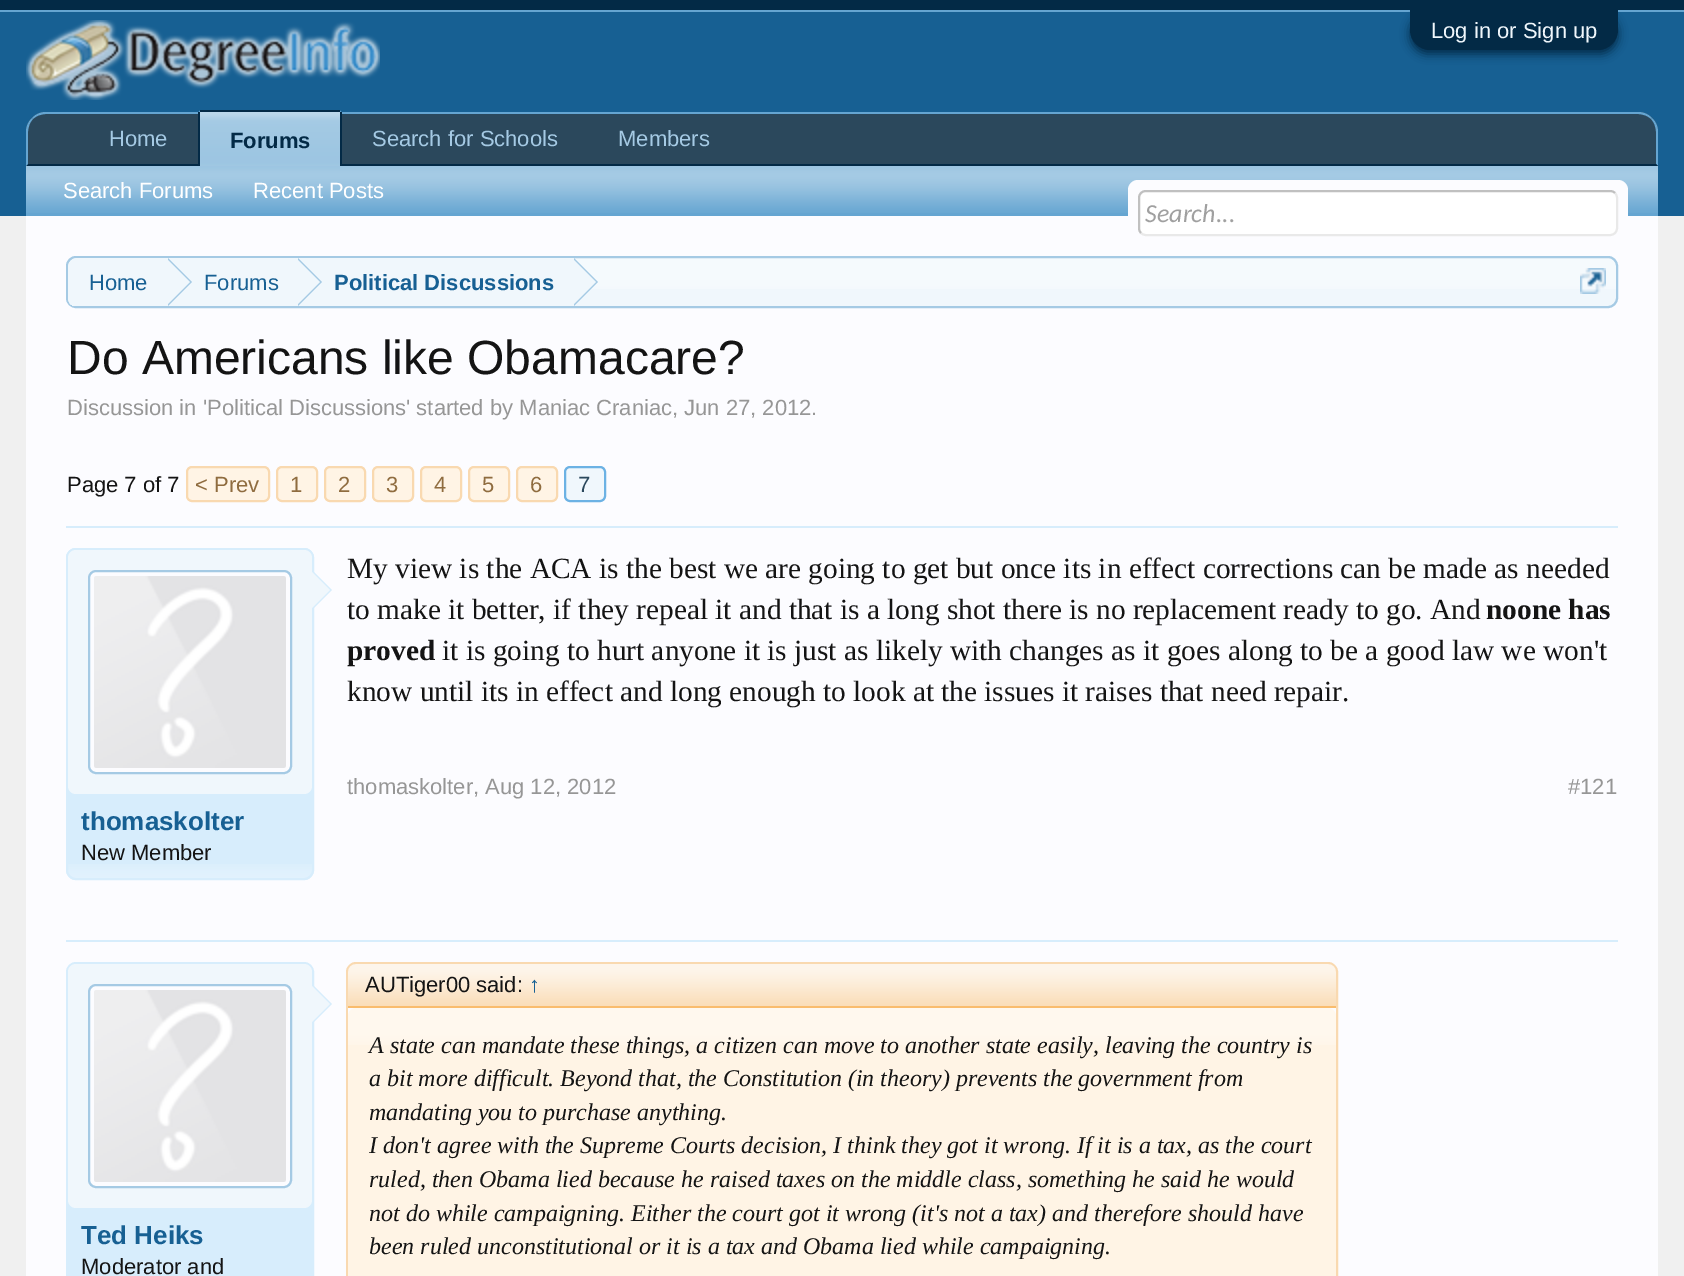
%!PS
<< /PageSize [1684 1276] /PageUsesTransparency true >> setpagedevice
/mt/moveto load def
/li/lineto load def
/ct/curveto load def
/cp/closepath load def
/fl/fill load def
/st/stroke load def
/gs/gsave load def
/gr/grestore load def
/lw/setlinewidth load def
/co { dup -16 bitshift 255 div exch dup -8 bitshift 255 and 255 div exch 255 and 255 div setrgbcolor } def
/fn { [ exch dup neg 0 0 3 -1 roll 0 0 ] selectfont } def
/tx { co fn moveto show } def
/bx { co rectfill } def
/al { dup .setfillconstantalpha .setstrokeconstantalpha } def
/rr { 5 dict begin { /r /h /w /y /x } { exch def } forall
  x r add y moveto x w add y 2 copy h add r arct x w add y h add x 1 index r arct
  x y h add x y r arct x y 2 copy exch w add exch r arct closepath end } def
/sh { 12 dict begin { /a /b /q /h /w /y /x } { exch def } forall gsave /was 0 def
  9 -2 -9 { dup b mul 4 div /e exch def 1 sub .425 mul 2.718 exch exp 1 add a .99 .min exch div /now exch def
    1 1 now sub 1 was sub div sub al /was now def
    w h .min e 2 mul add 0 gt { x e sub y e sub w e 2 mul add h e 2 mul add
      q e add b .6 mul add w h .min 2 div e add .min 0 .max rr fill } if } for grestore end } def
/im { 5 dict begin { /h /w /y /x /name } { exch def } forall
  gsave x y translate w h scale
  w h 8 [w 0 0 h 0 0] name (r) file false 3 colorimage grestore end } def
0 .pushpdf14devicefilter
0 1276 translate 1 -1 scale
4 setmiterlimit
0 0 1684 1276 16#F0F0F0 bx
0 0 1684 10 16#032A46 bx
0 10 1684 2 16#65A5D1 bx
0 12 1684 204 16#176093 bx
16#032A46 co
1410 14 208 40 20 5 1 sh
1410 10 mt 1618 10 li 1618 30 li 1618 41 1609 50 1598 50 ct 1430 50 li 1419 50 1410 41 1410 30 ct cp fl
(media/1.raw) 26 20 354 80 im
16#2B485C co
46 112 mt 1638 112 li 1649 112 1658 121 1658 132 ct 1658 166 li 26 166 li 26 132 li 26 121 35 112 46 112 ct cp fl
16#65A5D1 co
46 112 mt 40 112 36 114 32 118 ct 33 119 li 36 116 41 114 46 114 ct 1638 114 li 1643 114 1648 116 1651 119 ct 1652 118 li 1648 114 1644 112 1638 112 ct cp fl
1658 166 mt 1658 132 li 1658 126 1656 122 1652 118 ct 1651 119 li 1654 122 1656 127 1656 132 ct 1656 164 li cp fl
16#032A46 co
1658 166 mt 1656 164 li 28 164 li 26 166 li cp fl
16#65A5D1 co
26 166 mt 28 164 li 28 132 li 28 127 30 122 33 119 ct 32 118 li 28 122 26 126 26 132 ct cp fl
202 110 mt 338 110 li 340 110 342 112 342 114 ct 342 166 li 198 166 li 198 114 li 198 112 200 110 202 110 ct cp fl
(media/2.raw) 200 112 140 54 im
200 110 140 2 16#032A46 bx
340 112 2 54 16#032A46 bx
198 112 2 54 16#032A46 bx
26 166 1632 50 16#65A5D1 bx
(media/3.raw) 26 166 1632 47 im
26 216 1632 1060 16#FCFCFF bx
1128 180 500 56 10 rr fl
16#FFFFFF co
1138 190 480 46 8 rr fl
16#E9E9E9 co
2 lw
1615 193 mt 1616.5 194.5 1617 196 1617 198 ct 1617 228 li 1617 230 1616.5 231.5 1615 233 ct 1613.5 234.5 1612 235 1610 235 ct 1146 235 li 1144 235 1142.5 234.5 1141 233 ct st
16#C0C0C0 co
1141 233 mt 1139.5 231.5 1139 230 1139 228 ct 1139 198 li 1139 196 1139.5 194.5 1141 193 ct 1142.5 191.5 1144 191 1146 191 ct 1610 191 li 1612 191 1613.5 191.5 1615 193 ct st
16#F0F7FC co
66 256 1552 52 10 rr fl
(media/4.raw) 66 258 1552 31 im
16#A5CAE4 co
67 257 1550 50 9 rr st
gs
68 258 1548 48 8 rr clip newpath
16#F0F7FC co
78 258 mt 168 258 li 168 308 li 78 308 li 72.5 308 68 303.5 68 298 ct 68 268 li 68 262.5 72.5 258 78 258 ct cp fl
gr
168 258 406 31 16#F0F7FC bx
16#A5CAE4 co
168 306 mt 168 258 li 192 282 li cp fl
16#F0F7FC co
166 306 mt 166 258 li 190 282 li cp fl
16#A5CAE4 co
298 306 mt 298 258 li 322 282 li cp fl
16#F0F7FC co
296 306 mt 296 258 li 320 282 li cp fl
16#A5CAE4 co
574 306 mt 574 258 li 598 282 li cp fl
16#F0F7FC co
572 306 mt 572 258 li 596 282 li cp fl
(media/5.raw) 1580 268 26 26 im
16#FFF4E5 co
187 467 82 34 5 rr gs fl gr
16#F9D9B0 co
st
16#FFF4E5 co
277 467 40 34 5 rr gs fl gr
16#F9D9B0 co
st
16#FFF4E5 co
325 467 40 34 5 rr gs fl gr
16#F9D9B0 co
st
16#FFF4E5 co
373 467 40 34 5 rr gs fl gr
16#F9D9B0 co
st
16#FFF4E5 co
421 467 40 34 5 rr gs fl gr
16#F9D9B0 co
st
16#FFF4E5 co
469 467 40 34 5 rr gs fl gr
16#F9D9B0 co
st
16#FFF4E5 co
517 467 40 34 5 rr gs fl gr
16#F9D9B0 co
st
16#F0F7FC co
565 467 40 34 5 rr gs fl gr
16#6CB2E4 co
st
66 526 1552 2 16#D7EDFC bx
66 548 248 332 10 rr fl
(media/6.raw) 66 864 248 14 im
67 549 246 330 9 rr st
16#F0F7FC co
68 550 244 244 8 rr fl
16#FCFCFF co
89 571 202 202 7 rr gs fl gr
16#A5CAE4 co
st
(media/7.raw) 94 576 192 192 im
16#D7EDFC co
312 610 mt 312 570 li 332 590 li cp fl
16#F0F7FC co
310 610 mt 310 570 li 330 590 li cp fl
66 940 1552 2 16#D7EDFC bx
67 963 246 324 9 rr gs fl gr
st
16#F0F7FC co
68 964 244 244 8 rr fl
16#FCFCFF co
89 985 202 202 7 rr gs fl gr
16#A5CAE4 co
st
(media/7.raw) 94 990 192 192 im
16#D7EDFC co
312 1024 mt 312 984 li 332 1004 li cp fl
16#F0F7FC co
310 1024 mt 310 984 li 330 1004 li cp fl
16#F9D9B0 co
347 963 990 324 9 rr st
356 964 mt 1328 964 li 1332.5 964 1336 967.5 1336 972 ct 1336 1008 li 348 1008 li 348 972 li 348 967.5 351.5 964 356 964 ct cp fl
(media/8.raw) 348 964 988 42 im
348 1006 988 2 16#F9BC6D bx
16#FFF4E5 co
348 1008 988 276 8 rr fl
(media/9.raw) 348 1008 988 37 im
(Log in or Sign up) 1431 38 /LiberationSans-Regular 22 16#F0F7FC tx
(Home) 109 146 /LiberationSans-Regular 22 16#A5CAE4 tx
(Search for Schools) 372 146 /LiberationSans-Regular 22 16#A5CAE4 tx
(Members) 618 146 /LiberationSans-Regular 22 16#A5CAE4 tx
(Forums) 230 148 /LiberationSans-Bold 22 16#032A46 tx
(Search Forums) 63 198 /LiberationSans-Regular 22 16#FFFFFF tx
(Recent Posts) 253 198 /LiberationSans-Regular 22 16#FFFFFF tx
(Search...) 1145 222 /Carlito-Italic 26 16#A0A0A0 tx
(Home) 89 290 /LiberationSans-Regular 22 16#176093 tx
(Forums) 204 290 /LiberationSans-Regular 22 16#176093 tx
(Political Discussions) 334 290 /LiberationSans-Bold 22 16#176093 tx
(Do Americans like Obamacare?) 67 374 /LiberationSans-Regular 48 16#141414 tx
(Discussion in 'Political Discussions' started by Maniac Craniac, Jun 27, 2012.) 67 415 /LiberationSans-Regular 22 16#969696 tx
(Page 7 of 7) 67 492 /LiberationSans-Regular 22 16#141414 tx
(< Prev) 195 492 /LiberationSans-Regular 22 16#8F6C3F tx
(1) 290 492 /LiberationSans-Regular 22 16#8F6C3F tx
(2) 338 492 /LiberationSans-Regular 22 16#8F6C3F tx
(3) 386 492 /LiberationSans-Regular 22 16#8F6C3F tx
(4) 434 492 /LiberationSans-Regular 22 16#8F6C3F tx
(5) 482 492 /LiberationSans-Regular 22 16#8F6C3F tx
(6) 530 492 /LiberationSans-Regular 22 16#8F6C3F tx
(7) 578 492 /LiberationSans-Regular 22 16#2B485C tx
(My view is the ACA is the best we are going to get but once its in effect corrections can be made as needed) 347 578 /LiberationSerif-Regular 29.35 16#141414 tx
(to make it better, if they repeal it and that is a long shot there is no replacement ready to go. And) 347 619 /LiberationSerif-Regular 29.35 16#141414 tx
(noone has) 1486 619 /LiberationSerif-Bold 29.35 16#141414 tx
(proved) 347 660 /LiberationSerif-Bold 29.35 16#141414 tx
(it is going to hurt anyone it is just as likely with changes as it goes along to be a good law we won't) 442 660 /LiberationSerif-Regular 29.35 16#141414 tx
(know until its in effect and long enough to look at the issues it raises that need repair.) 347 701 /LiberationSerif-Regular 29.35 16#141414 tx
(thomaskolter, Aug 12, 2012) 347 794 /LiberationSans-Regular 22 16#969696 tx
(#121) 1568 794 /LiberationSans-Regular 22 16#969696 tx
(thomaskolter) 81 830 /LiberationSans-Bold 26 16#176093 tx
(New Member) 81 860 /LiberationSans-Regular 22 16#141414 tx
(Ted Heiks) 81 1244 /LiberationSans-Bold 26 16#176093 tx
(Moderator and) 81 1274 /LiberationSans-Regular 22 16#141414 tx
(AUTiger00 said:) 365 992 /LiberationSans-Regular 22 16#141414 tx
(↑) 529 992 /LiberationSans-Regular 22 16#176093 tx
(A state can mandate these things, a citizen can move to another state easily, leaving the country is) 369 1053 /LiberationSerif-Italic 24 16#141414 tx
(a bit more difficult. Beyond that, the Constitution \(in theory\) prevents the government from) 369 1086 /LiberationSerif-Italic 24 16#141414 tx
(mandating you to purchase anything.) 369 1120 /LiberationSerif-Italic 24 16#141414 tx
(I don't agree with the Supreme Courts decision, I think they got it wrong. If it is a tax, as the court) 369 1153 /LiberationSerif-Italic 24 16#141414 tx
(ruled, then Obama lied because he raised taxes on the middle class, something he said he would) 369 1187 /LiberationSerif-Italic 24 16#141414 tx
(not do while campaigning. Either the court got it wrong \(it's not a tax\) and therefore should have) 369 1221 /LiberationSerif-Italic 24 16#141414 tx
(been ruled unconstitutional or it is a tax and Obama lied while campaigning.) 369 1254 /LiberationSerif-Italic 24 16#141414 tx
.poppdf14devicefilter showpage
